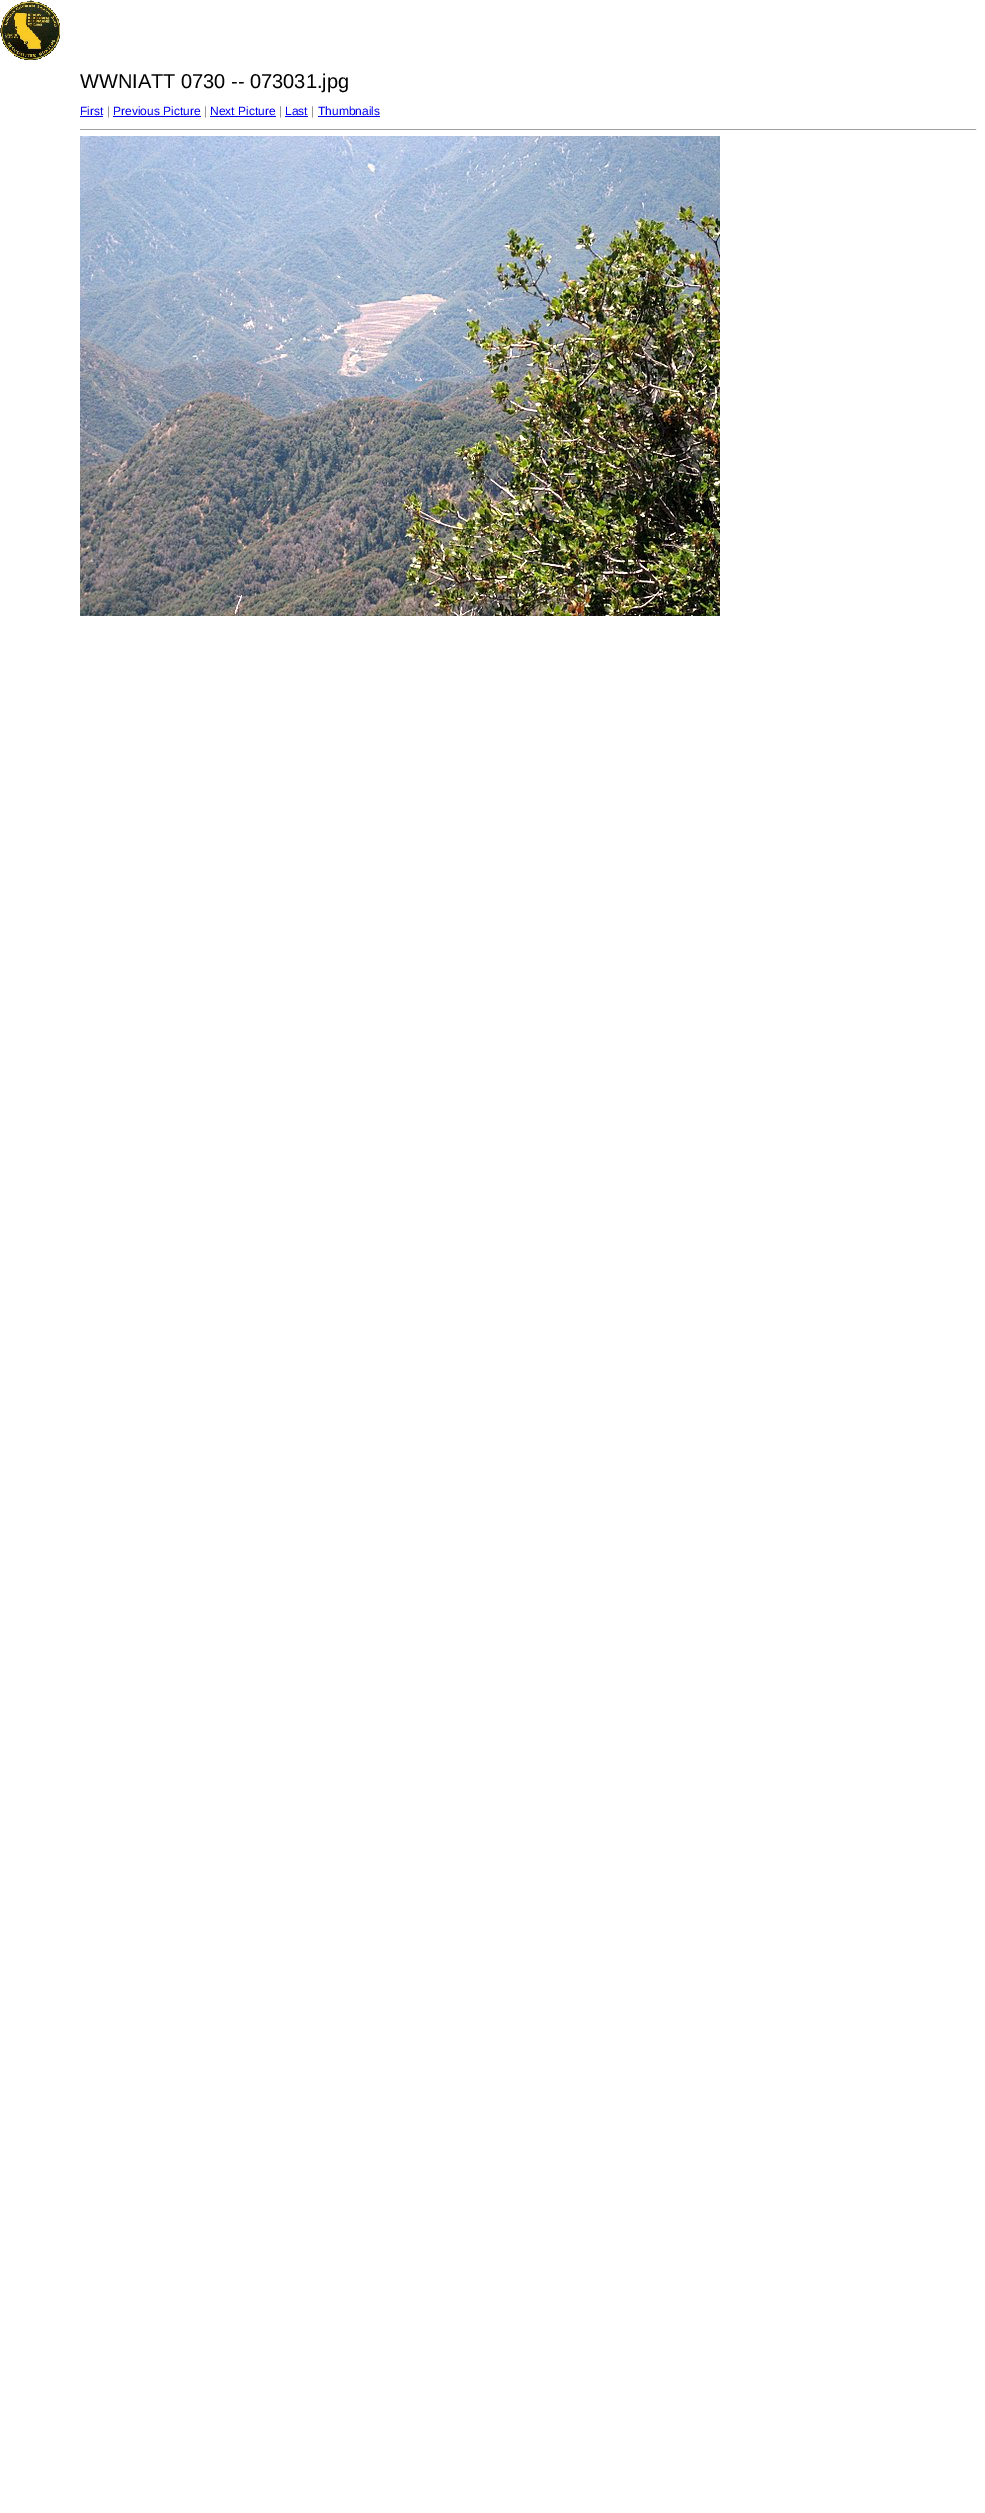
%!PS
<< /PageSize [985 2513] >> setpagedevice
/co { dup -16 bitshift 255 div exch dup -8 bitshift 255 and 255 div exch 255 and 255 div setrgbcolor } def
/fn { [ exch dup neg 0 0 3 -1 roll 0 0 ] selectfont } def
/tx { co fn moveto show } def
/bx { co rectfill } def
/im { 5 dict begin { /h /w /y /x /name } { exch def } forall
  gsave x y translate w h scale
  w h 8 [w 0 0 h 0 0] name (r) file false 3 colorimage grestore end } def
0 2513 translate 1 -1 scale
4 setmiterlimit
0 0 985 2513 16#FFFFFF bx
(media/1.raw) 0 0 60 60 im
80 116 23 1 16#0000EE bx
113 116 88 1 16#0000EE bx
210 116 66 1 16#0000EE bx
285 116 23 1 16#0000EE bx
318 116 62 1 16#0000EE bx
80 129 897 1 16#9F9F9F bx
976 129 1 1 16#EEEEEE bx
(media/2.raw) 80 136 640 480 im
(WWNIATT 0730 -- 073031.jpg) 80 88 /LiberationSans-Regular 20 16#000000 tx
(First) 80 115 /LiberationSans-Regular 12 16#0000EE tx
(|) 107 115 /LiberationSans-Regular 12 16#979797 tx
(Previous Picture) 113 115 /LiberationSans-Regular 12 16#0000EE tx
(|) 204 115 /LiberationSans-Regular 12 16#979797 tx
(Next Picture) 210 115 /LiberationSans-Regular 12 16#0000EE tx
(|) 279 115 /LiberationSans-Regular 12 16#979797 tx
(Last) 285 115 /LiberationSans-Regular 12 16#0000EE tx
(|) 311 115 /LiberationSans-Regular 12 16#979797 tx
(Thumbnails) 318 115 /LiberationSans-Regular 12 16#0000EE tx
showpage
